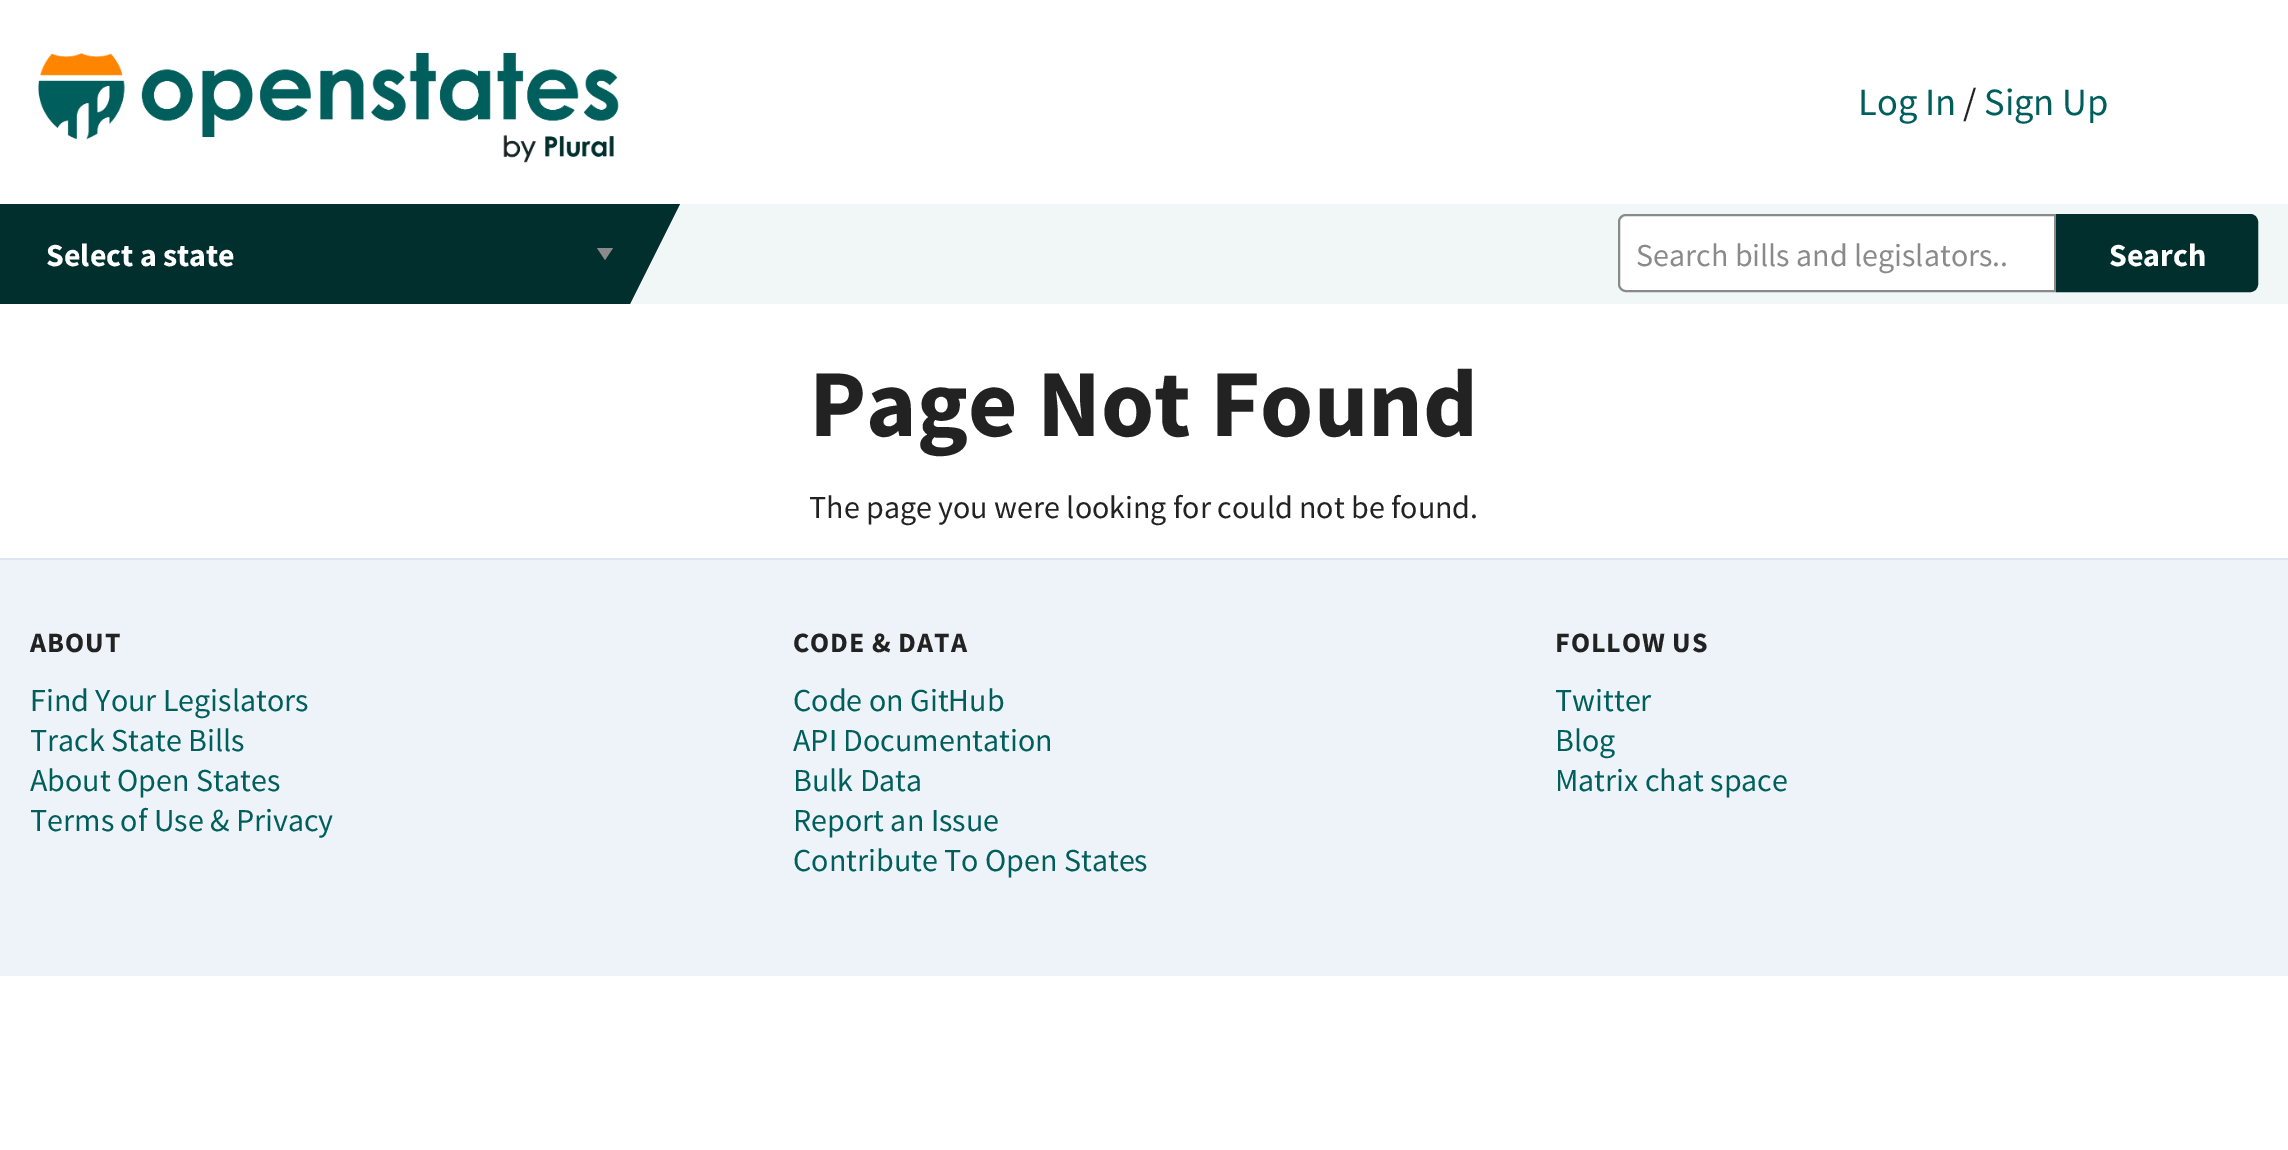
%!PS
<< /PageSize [2288 1150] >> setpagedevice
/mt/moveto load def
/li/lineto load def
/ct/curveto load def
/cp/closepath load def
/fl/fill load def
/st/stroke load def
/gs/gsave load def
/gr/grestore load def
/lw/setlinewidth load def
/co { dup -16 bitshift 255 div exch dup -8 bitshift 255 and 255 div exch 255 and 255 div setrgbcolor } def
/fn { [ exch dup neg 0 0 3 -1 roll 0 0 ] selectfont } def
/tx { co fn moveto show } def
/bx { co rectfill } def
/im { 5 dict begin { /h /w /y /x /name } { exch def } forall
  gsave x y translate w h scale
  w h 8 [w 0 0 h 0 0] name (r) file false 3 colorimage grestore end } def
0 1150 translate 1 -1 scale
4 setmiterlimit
0 0 2288 1150 16#FFFFFF bx
(media/1.raw) 38 52 581 111 im
0 204 630 100 16#002F2E bx
630 204 1658 100 16#F1F6F6 bx
16#8A8A8A co
597 248 mt 613 248 li 605 260 li cp fl
16#002F2E co
630 304 mt 630 204 li 680 204 li cp fl
16#FFFFFF co
1626 215 mt 2055 215 li 2055 291 li 1626 291 li 1622 291 1619 288 1619 284 ct 1619 222 li 1619 218 1622 215 1626 215 ct cp gs fl gr
16#8A8A8A co
2 lw
st
16#002F2E co
2058 216 mt 2250 216 li 2253.5 216 2256 218.5 2256 222 ct 2256 284 li 2256 287.5 2253.5 290 2250 290 ct 2058 290 li cp gs fl gr
4 lw
st
0 560 2288 416 16#EDF3F8 bx
0 558 2288 2 16#DBE6F1 bx
(Log In) 1858 115 /SourceSansPro-Regular 38.5 16#005E5C tx
(/) 1963 115 /SourceSansPro-Regular 38.5 16#222222 tx
(Sign Up) 1984 115 /SourceSansPro-Regular 38.5 16#005E5C tx
(Select a state) 46 266 /SourceSansPro-Bold 32 16#FFFFFF tx
(Search bills and legislators..) 1636 266 /SourceSansPro-Regular 32 16#8A8A8A tx
(Search) 2109 266 /SourceSansPro-Bold 32 16#FFFFFF tx
(Page Not Found) 809 436 /SourceSansPro-Bold 96 16#222222 tx
(The page you were looking for could not be found.) 809 518 /SourceSansPro-Regular 32 16#222222 tx
/SourceSansPro-Bold 28 fn
30 652 mt 1 0 (ABOUT) ashow
(Find Your Legislators) 30 711 /SourceSansPro-Regular 32 16#005E5C tx
(Track State Bills) 30 751 /SourceSansPro-Regular 32 16#005E5C tx
(About Open States) 30 791 /SourceSansPro-Regular 32 16#005E5C tx
(Terms of Use & Privacy) 30 831 /SourceSansPro-Regular 32 16#005E5C tx
/SourceSansPro-Bold 28 fn
16#222222 co
793 652 mt 1 0 (CODE & DATA) ashow
(Code on GitHub) 793 711 /SourceSansPro-Regular 32 16#005E5C tx
(API Documentation) 793 751 /SourceSansPro-Regular 32 16#005E5C tx
(Bulk Data) 793 791 /SourceSansPro-Regular 32 16#005E5C tx
(Report an Issue) 793 831 /SourceSansPro-Regular 32 16#005E5C tx
(Contribute To Open States) 793 871 /SourceSansPro-Regular 32 16#005E5C tx
/SourceSansPro-Bold 28 fn
16#222222 co
1555 652 mt 1 0 (FOLLOW US) ashow
(Twitter) 1555 711 /SourceSansPro-Regular 32 16#005E5C tx
(Blog) 1555 751 /SourceSansPro-Regular 32 16#005E5C tx
(Matrix chat space) 1555 791 /SourceSansPro-Regular 32 16#005E5C tx
showpage
